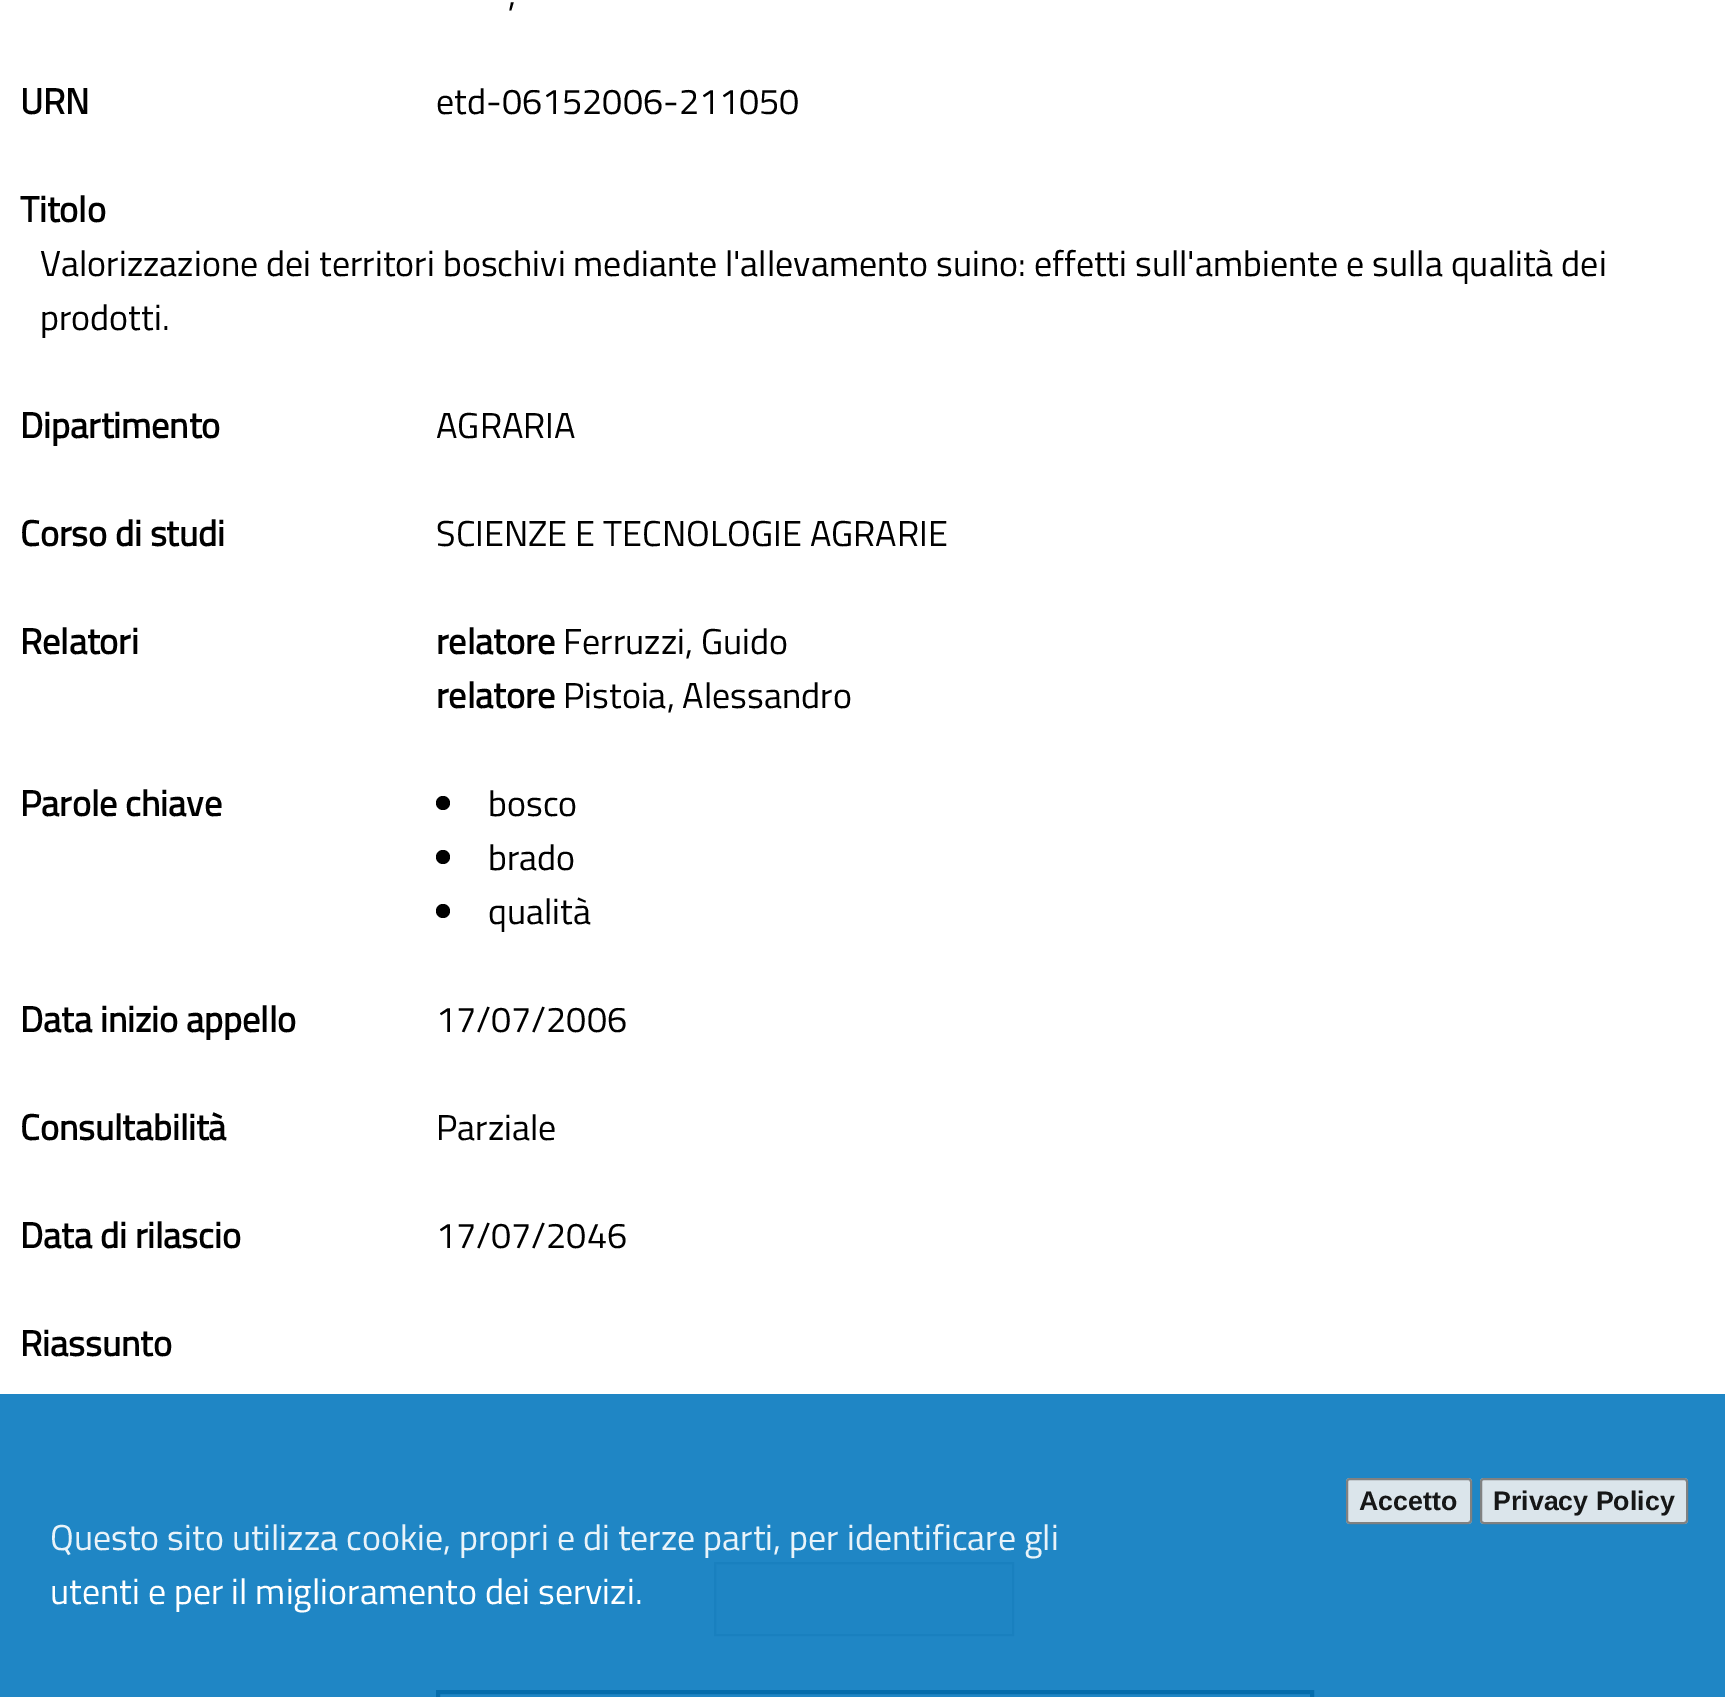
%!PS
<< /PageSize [1725 1697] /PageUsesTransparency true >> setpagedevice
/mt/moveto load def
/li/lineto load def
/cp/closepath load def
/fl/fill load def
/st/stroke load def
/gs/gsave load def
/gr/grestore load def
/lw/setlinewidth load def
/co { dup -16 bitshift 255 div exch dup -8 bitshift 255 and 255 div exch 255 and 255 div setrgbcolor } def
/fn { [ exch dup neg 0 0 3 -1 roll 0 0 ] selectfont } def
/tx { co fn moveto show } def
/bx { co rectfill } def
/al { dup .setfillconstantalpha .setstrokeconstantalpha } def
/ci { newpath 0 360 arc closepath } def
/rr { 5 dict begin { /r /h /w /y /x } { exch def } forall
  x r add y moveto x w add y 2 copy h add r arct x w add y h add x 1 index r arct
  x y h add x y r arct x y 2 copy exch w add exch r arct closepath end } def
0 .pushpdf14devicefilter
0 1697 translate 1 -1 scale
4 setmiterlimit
0 0 1725 1697 16#FFFFFF bx
16#000000 co
443 803 7 ci fl
443 857 7 ci fl
443 911 7 ci fl
16#EFEFEF co
715 1563 mt 1013 1563 li 1013 1635 li 715 1635 li cp gs fl gr
16#C0C0C0 co
2 lw
st
16#000000 co
4 lw
438 1692 874 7 rectstroke
0.9 al
0 1394 1725 303 16#0779BF bx
16#EFEFEF co
1346 1478 126 46 4 rr fl
16#767676 co
2 lw
1347 1479 124 44 3 rr st
16#EFEFEF co
1480 1478 208 46 4 rr fl
16#767676 co
1481 1479 206 44 3 rr st
1 al
(,) 508 6 /TitilliumWeb-Regular 36 16#000000 tx
(URN) 20 114 /TitilliumWeb-Bold 36 16#000000 tx
(etd-06152006-211050) 436 114 /TitilliumWeb-Regular 36 16#000000 tx
(Titolo) 20 222 /TitilliumWeb-Bold 36 16#000000 tx
(Valorizzazione dei territori boschivi mediante l'allevamento suino: effetti sull'ambiente e sulla qualità dei) 40 276 /TitilliumWeb-Regular 36 16#000000 tx
(prodotti.) 40 330 /TitilliumWeb-Regular 36 16#000000 tx
(Dipartimento) 20 438 /TitilliumWeb-Bold 36 16#000000 tx
(AGRARIA) 436 438 /TitilliumWeb-Regular 36 16#000000 tx
(Corso di studi) 20 546 /TitilliumWeb-Bold 36 16#000000 tx
(SCIENZE E TECNOLOGIE AGRARIE) 436 546 /TitilliumWeb-Regular 36 16#000000 tx
(Relatori) 20 654 /TitilliumWeb-Bold 36 16#000000 tx
(relatore) 436 654 /TitilliumWeb-Bold 36 16#000000 tx
(Ferruzzi, Guido) 563 654 /TitilliumWeb-Regular 36 16#000000 tx
(relatore) 436 708 /TitilliumWeb-Bold 36 16#000000 tx
(Pistoia, Alessandro) 563 708 /TitilliumWeb-Regular 36 16#000000 tx
(Parole chiave) 20 816 /TitilliumWeb-Bold 36 16#000000 tx
(bosco) 488 816 /TitilliumWeb-Regular 36 16#000000 tx
(brado) 488 870 /TitilliumWeb-Regular 36 16#000000 tx
(qualità) 488 924 /TitilliumWeb-Regular 36 16#000000 tx
(Data inizio appello) 20 1032 /TitilliumWeb-Bold 36 16#000000 tx
(17/07/2006) 436 1032 /TitilliumWeb-Regular 36 16#000000 tx
(Consultabilità) 20 1140 /TitilliumWeb-Bold 36 16#000000 tx
(Parziale) 436 1140 /TitilliumWeb-Regular 36 16#000000 tx
(Data di rilascio) 20 1248 /TitilliumWeb-Bold 36 16#000000 tx
(17/07/2046) 436 1248 /TitilliumWeb-Regular 36 16#000000 tx
(Riassunto) 20 1356 /TitilliumWeb-Bold 36 16#000000 tx
(Accetto) 1359 1510 /LiberationSans-Bold 26.75 16#161717 tx
(Privacy Policy) 1493 1510 /LiberationSans-Bold 26.75 16#161717 tx
(Questo sito utilizza cookie, propri e di terze parti, per identificare gli) 50 1550 /TitilliumWeb-Regular 36 16#E9F3F9 tx
(utenti e per il miglioramento dei servizi.) 50 1604 /TitilliumWeb-Regular 36 16#FFFFFF tx
.poppdf14devicefilter showpage
